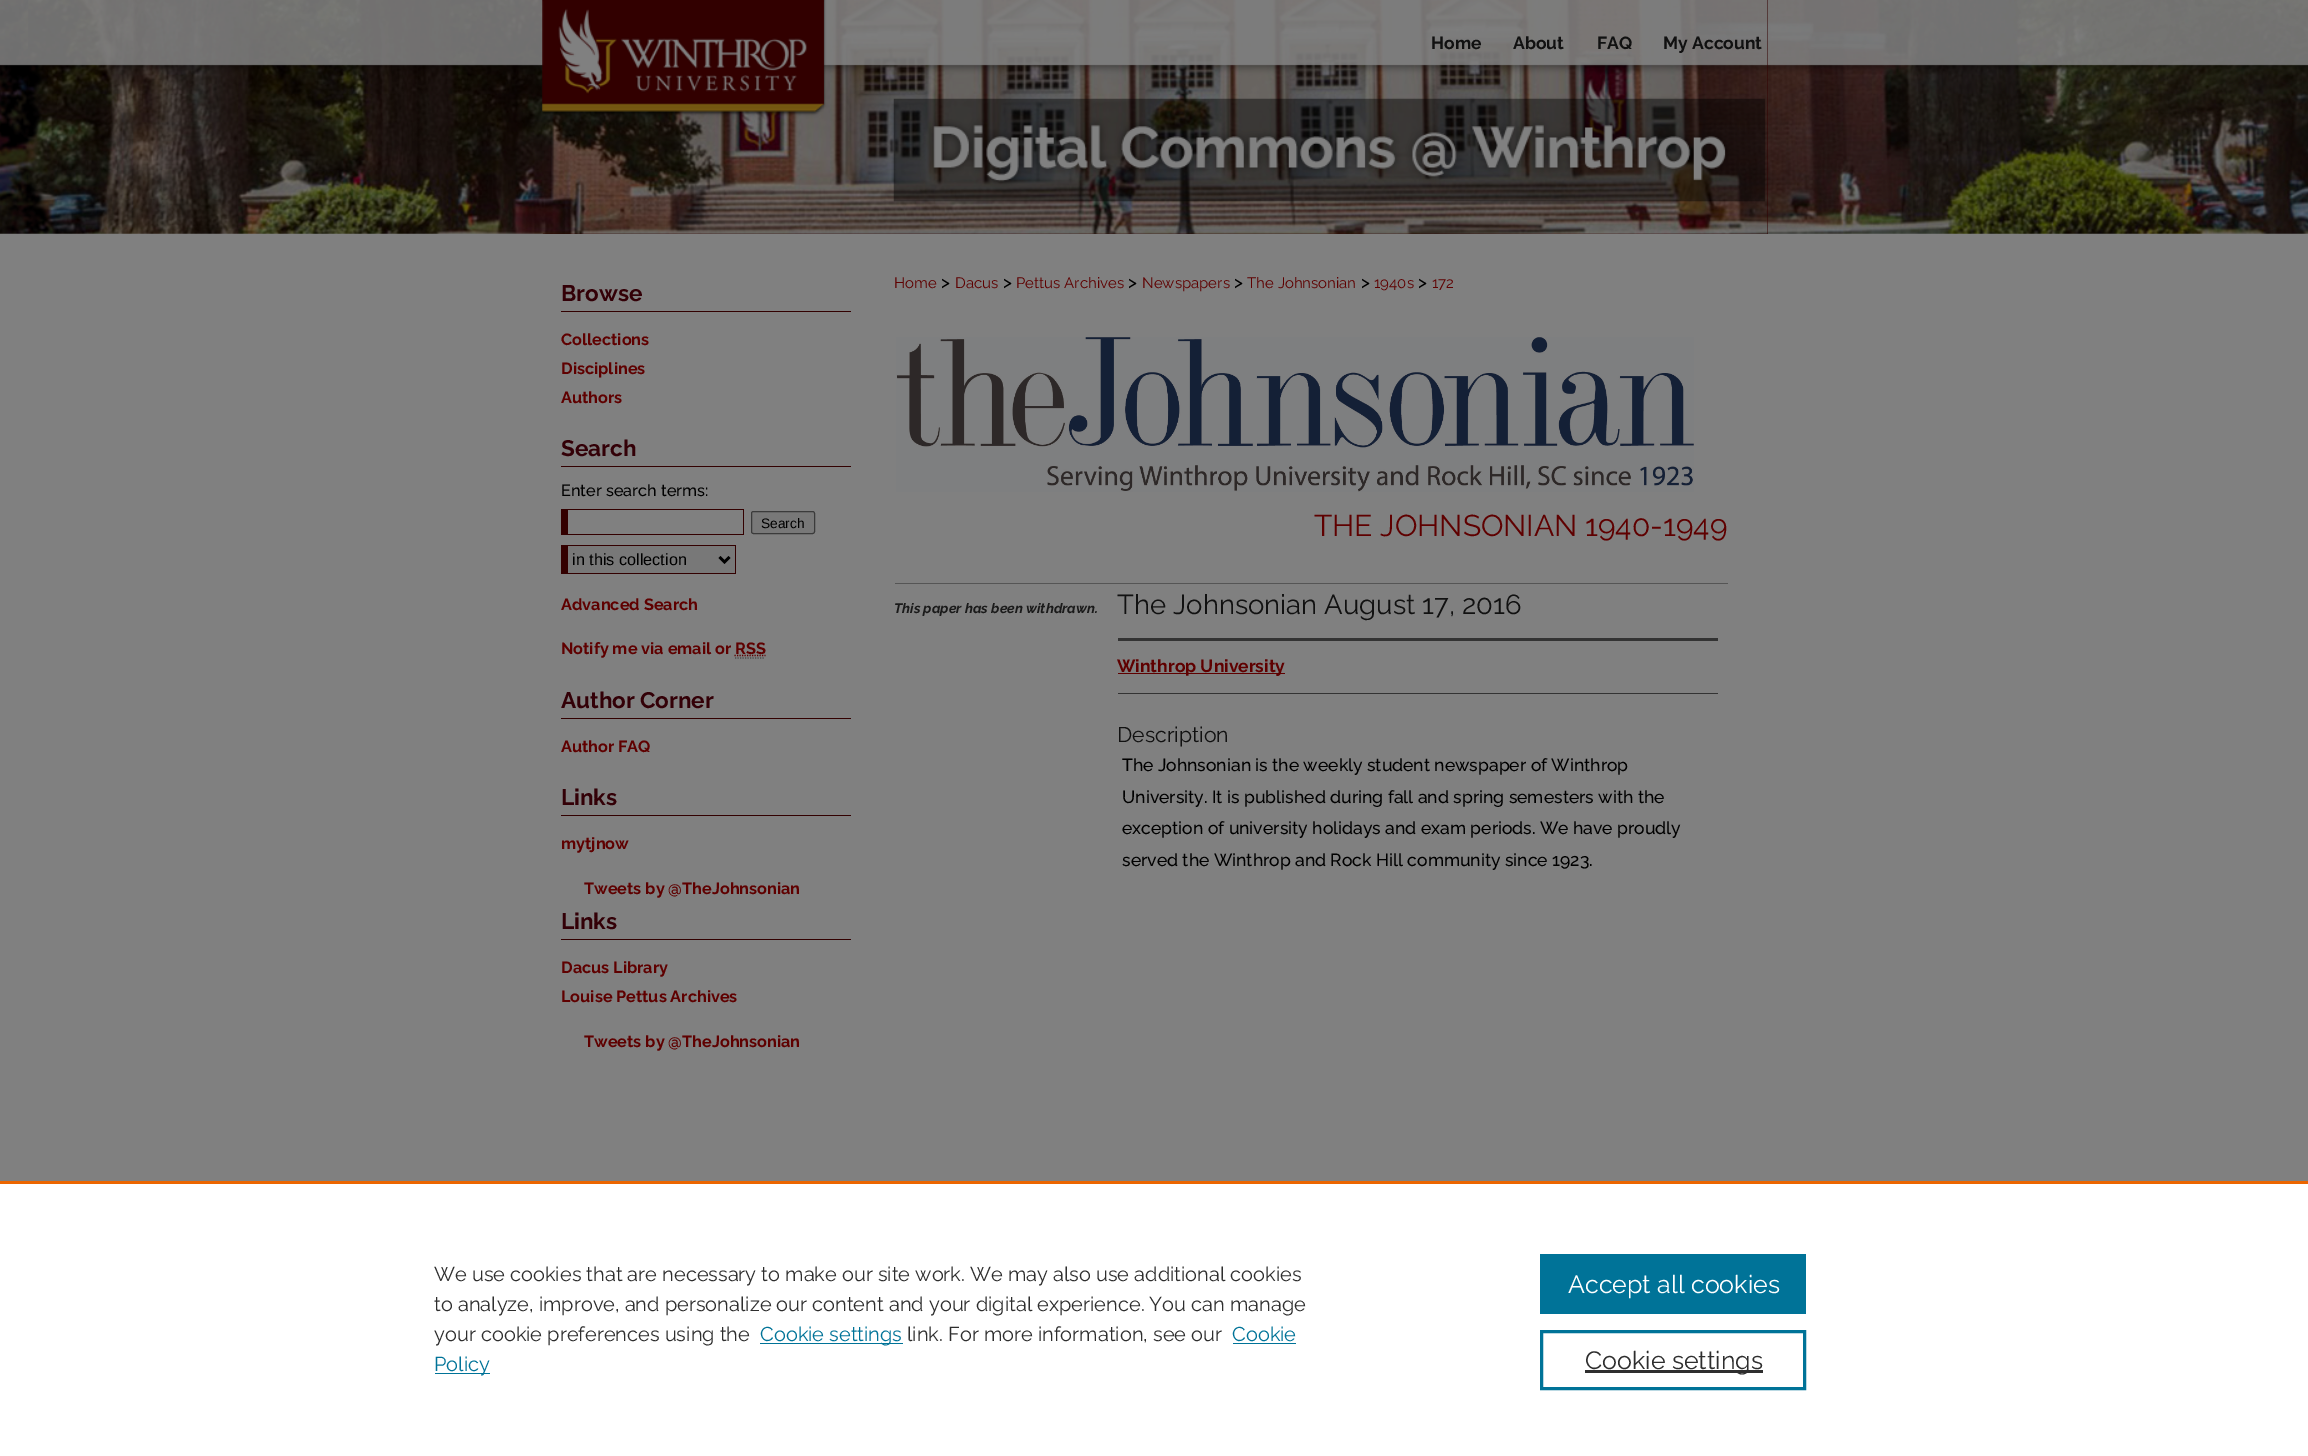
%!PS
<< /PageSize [2308 1456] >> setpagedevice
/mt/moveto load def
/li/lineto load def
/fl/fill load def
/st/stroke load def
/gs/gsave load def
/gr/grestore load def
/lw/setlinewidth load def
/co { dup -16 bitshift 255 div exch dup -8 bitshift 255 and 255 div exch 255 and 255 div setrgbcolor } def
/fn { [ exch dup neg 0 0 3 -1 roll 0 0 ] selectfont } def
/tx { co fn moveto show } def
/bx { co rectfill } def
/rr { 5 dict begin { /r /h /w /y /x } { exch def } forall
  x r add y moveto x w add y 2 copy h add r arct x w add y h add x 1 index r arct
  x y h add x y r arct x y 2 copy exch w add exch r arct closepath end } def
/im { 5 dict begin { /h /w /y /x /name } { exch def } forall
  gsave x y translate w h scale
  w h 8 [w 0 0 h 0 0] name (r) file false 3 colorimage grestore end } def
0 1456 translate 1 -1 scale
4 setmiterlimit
0 0 2308 1456 16#808080 bx
(media/1.raw) 0 0 2308 234 im
543 0 1225 234 16#320000 bx
(media/2.raw) 542 0 1226 234 im
(media/3.raw) 542 0 282 112 im
561 311 290 1 16#320000 bx
561 466 290 1 16#320000 bx
561 509 183 1 16#330000 bx
743 509 1 26 16#330000 bx
561 534 183 1 16#330000 bx
561 509 7 26 16#330000 bx
16#787878 co
751.5 511.5 63 22 2 rr gs fl gr
16#3B3B3B co
st
568 546 167 27 16#787878 bx
561 545 175 1 16#330000 bx
735 545 1 29 16#330000 bx
561 573 175 1 16#330000 bx
561 545 7 29 16#330000 bx
16#000000 co
2.5 lw
719.5 557 mt 724.5 562 li 729.5 557 li st
16#4D4D4D co
1.2 lw
[1.25 1.25] 0 setdash
735 658 mt 765 658 li st
16#5F0000 co
734.5 655.5 mt 765.5 655.5 li st
561 718 290 1 16#320000 bx
561 815 290 1 16#320000 bx
561 939 290 1 16#320000 bx
(media/4.raw) 896 337 798 155 im
895 583 833 1 16#555555 bx
1118 638 600 3 16#333333 bx
1118 693 600 1 16#333333 bx
1118 673 167 1 16#5F0000 bx
0 1184 2308 272 16#FFFFFF bx
0 1181 2308 3 16#EB6500 bx
760 1343 143 1 16#007398 bx
1233 1343 63 1 16#007398 bx
435 1373 55 1 16#007398 bx
1540 1254 266 60 16#007398 bx
3 lw
[] 0 setdash
1541.5 1331.5 263 57 rectstroke
1585 1370 178 3 16#2E2E2E bx
(Home) 1431 49 /Raleway-Bold 17.5 16#111111 tx
(About) 1513 49 /Raleway-Bold 17.5 16#111111 tx
(FAQ) 1597 49 /Raleway-Bold 17.5 16#111111 tx
(My Account) 1663 49 /Raleway-Bold 17.5 16#111111 tx
(Browse) 561 301 /Raleway-Bold 22.5 16#330007 tx
(Collections) 561 345 /Raleway-Bold 16.25 16#5F0000 tx
(Disciplines) 561 374 /Raleway-Bold 16.25 16#5F0000 tx
(Authors) 561 403 /Raleway-Bold 16.25 16#5F0000 tx
(Search) 561 456 /Raleway-Bold 22.5 16#330007 tx
(Enter search terms:) 561 496 /Raleway-Medium 16.25 16#000000 tx
(Search) 761 528 /LiberationSans-Regular 13.75 16#000000 tx
(in this collection) 572 565 /LiberationSans-Regular 16.25 16#000000 tx
(Advanced Search) 561 610 /Raleway-Bold 16.25 16#5F0000 tx
(Notify me via email or) 561 654 /Raleway-Bold 16.25 16#5F0000 tx
(RSS) 735 654 /Raleway-Bold 16.25 16#5F0000 tx
(Author Corner) 561 708 /Raleway-Bold 22.5 16#330007 tx
(Author FAQ) 561 752 /Raleway-Bold 16.25 16#5F0000 tx
(Links) 561 805 /Raleway-Bold 22.5 16#330007 tx
(mytjnow) 561 849 /Raleway-Bold 16.25 16#5F0000 tx
(Tweets by @TheJohnsonian) 584 894 /Raleway-Bold 16.25 16#5F0000 tx
(Links) 561 929 /Raleway-Bold 22.5 16#330007 tx
(Dacus Library) 561 973 /Raleway-Bold 16.25 16#5F0000 tx
(Louise Pettus Archives) 561 1002 /Raleway-Bold 16.25 16#5F0000 tx
(Tweets by @TheJohnsonian) 584 1047 /Raleway-Bold 16.25 16#5F0000 tx
(Home) 894 288 /Raleway-Regular 15 16#5F0000 tx
(>) 941 288 /Raleway-Medium 17.5 16#000000 tx
(Dacus) 955 288 /Raleway-Regular 15 16#5F0000 tx
(>) 1003 288 /Raleway-Medium 17.5 16#000000 tx
(Pettus Archives) 1016 288 /Raleway-Regular 15 16#5F0000 tx
(>) 1128 288 /Raleway-Medium 17.5 16#000000 tx
(Newspapers) 1142 288 /Raleway-Regular 15 16#5F0000 tx
(>) 1234 288 /Raleway-Medium 17.5 16#000000 tx
(The Johnsonian) 1247 288 /Raleway-Regular 15 16#5F0000 tx
(>) 1361 288 /Raleway-Medium 17.5 16#000000 tx
(1940s) 1374 288 /Raleway-Regular 15 16#5F0000 tx
(>) 1418 288 /Raleway-Medium 17.5 16#000000 tx
(172) 1432 288 /Raleway-Regular 15 16#5F0000 tx
(THE JOHNSONIAN 1940-1949) 1314 536 /Raleway-Regular 30 16#5F0000 tx
(This paper has been withdrawn.) 894 613 /Raleway-BoldItalic 13.75 16#1A1A1A tx
(The Johnsonian August 17, 2016) 1117 614 /Raleway-Regular 27.5 16#111111 tx
(Winthrop University) 1117 672 /Raleway-Bold 17.5 16#5F0000 tx
(Description) 1117 742 /Raleway-Regular 21.25 16#111111 tx
(The Johnsonian is the weekly student newspaper of Winthrop) 1122 771 /Raleway-Medium 17.5 16#000000 tx
(University. It is published during fall and spring semesters with the) 1122 803 /Raleway-Medium 17.5 16#000000 tx
(exception of university holidays and exam periods. We have proudly) 1122 834 /Raleway-Medium 17.5 16#000000 tx
(served the Winthrop and Rock Hill community since 1923.) 1122 866 /Raleway-Medium 17.5 16#000000 tx
(We use cookies that are necessary to make our site work. We may also use additional cookies) 434 1281 /Raleway-Regular 20 16#2E2E2E tx
(to analyze, improve, and personalize our content and your digital experience. You can manage) 434 1311 /Raleway-Regular 20 16#2E2E2E tx
(your cookie preferences using the) 434 1341 /Raleway-Regular 20 16#2E2E2E tx
(Cookie settings) 760 1341 /Raleway-Regular 20 16#007398 tx
(link. For more information, see our) 907 1341 /Raleway-Regular 20 16#2E2E2E tx
(Cookie) 1232 1341 /Raleway-Regular 20 16#007398 tx
(Policy) 434 1371 /Raleway-Regular 20 16#007398 tx
(Accept all cookies) 1568 1293 /Raleway-Regular 25 16#FFFFFF tx
(Cookie settings) 1585 1369 /Raleway-Regular 25 16#2E2E2E tx
showpage
